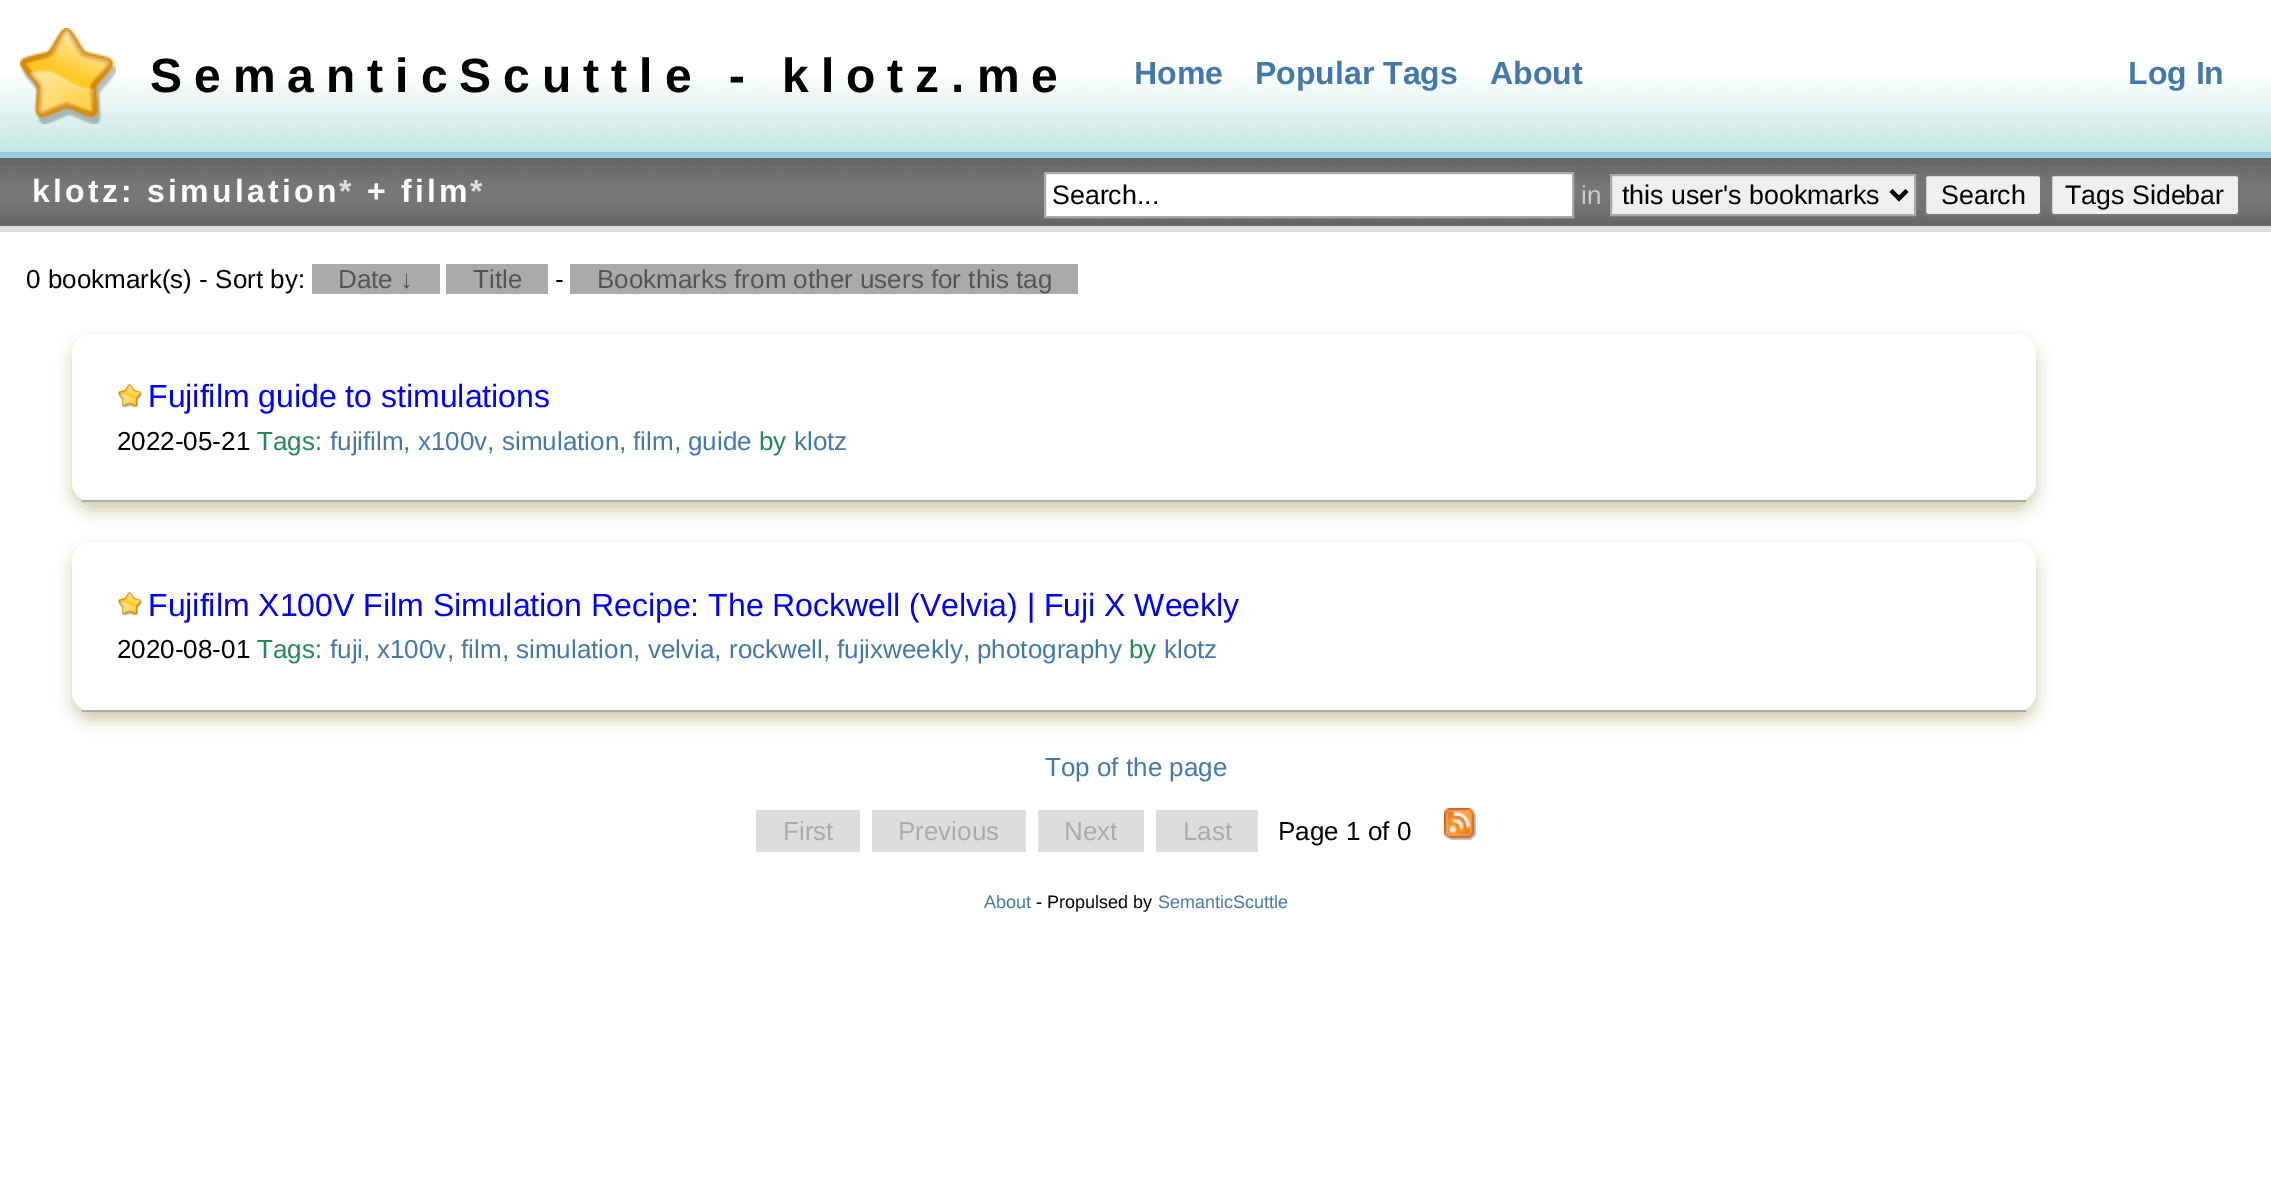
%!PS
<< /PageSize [2271 1199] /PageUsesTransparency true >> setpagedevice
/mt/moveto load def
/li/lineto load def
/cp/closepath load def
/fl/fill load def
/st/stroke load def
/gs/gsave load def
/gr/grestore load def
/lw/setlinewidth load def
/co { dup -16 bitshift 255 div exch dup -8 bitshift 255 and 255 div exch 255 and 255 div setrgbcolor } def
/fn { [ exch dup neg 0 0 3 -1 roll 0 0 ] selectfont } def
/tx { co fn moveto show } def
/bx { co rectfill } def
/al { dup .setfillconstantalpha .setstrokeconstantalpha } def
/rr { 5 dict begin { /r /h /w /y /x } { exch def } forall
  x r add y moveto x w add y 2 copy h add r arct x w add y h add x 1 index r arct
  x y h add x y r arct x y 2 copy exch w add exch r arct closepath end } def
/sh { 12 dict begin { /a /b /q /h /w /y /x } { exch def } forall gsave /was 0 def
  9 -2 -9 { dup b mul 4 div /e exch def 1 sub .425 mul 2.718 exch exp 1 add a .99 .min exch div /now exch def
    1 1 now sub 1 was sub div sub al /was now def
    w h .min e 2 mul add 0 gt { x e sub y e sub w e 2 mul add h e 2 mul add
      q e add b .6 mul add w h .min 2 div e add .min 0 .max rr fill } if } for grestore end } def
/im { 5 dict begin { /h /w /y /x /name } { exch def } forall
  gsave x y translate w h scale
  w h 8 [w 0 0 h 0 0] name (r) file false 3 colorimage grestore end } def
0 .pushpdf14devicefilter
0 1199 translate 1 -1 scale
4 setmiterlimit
0 0 2271 1199 16#FFFFFF bx
(media/1.raw) 0 75 2271 77 im
0 152 2271 6 16#99CCDD bx
(media/2.raw) 20 28 96 96 im
0 158 2271 68 16#666666 bx
(media/3.raw) 0 166 2271 54 im
0 226 2271 6 16#DDDDDD bx
16#FFFFFF co
1045 173 mt 1573 173 li 1573 217 li 1045 217 li cp gs fl gr
16#AAAAAA co
2 lw
st
16#EFEFEF co
1611 175 mt 1915 175 li 1915 215 li 1611 215 li cp gs fl gr
16#AAAAAA co
st
16#000000 co
4 lw
1891 190.5 mt 1899 198.5 li 1907 190.5 li st
16#EFEFEF co
1925 175 116 40 3 rr gs fl gr
16#767676 co
2 lw
st
16#EFEFEF co
2051 175 188 40 3 rr gs fl gr
16#767676 co
st
312 264 128 30 16#AAAAAA bx
446 264 102 30 16#AAAAAA bx
570 264 508 30 16#AAAAAA bx
16#999955 co
72 342 1964 168 20 8 .5 sh
16#FFFFFF co
72 334 1964 168 20 rr fl
82 500 1944 2 16#AAAAAA bx
(media/4.raw) 118 384 24 24 im
16#999955 co
72 550 1964 170 20 8 .5 sh
16#FFFFFF co
72 542 1964 170 20 rr fl
82 710 1944 2 16#AAAAAA bx
(media/4.raw) 118 592 24 24 im
756 810 104 42 16#DDDDDD bx
872 810 154 42 16#DDDDDD bx
1038 810 106 42 16#DDDDDD bx
1156 810 102 42 16#DDDDDD bx
(media/5.raw) 1444 808 32 32 im
/LiberationSans-Bold 48 fn
16#000000 co
150 92 mt 12 0 (SemanticScuttle - klotz.me) ashow
(Home) 1134 84 /LiberationSans-Bold 32 16#4477AA tx
(Popular Tags) 1255 84 /LiberationSans-Bold 32 16#4477AA tx
(About) 1490 84 /LiberationSans-Bold 32 16#4477AA tx
(Log In) 2128 84 /LiberationSans-Bold 32 16#4477AA tx
16#FFFFFF co
32 202 mt 3.25 0 (klotz: simulation) ashow
16#DDDDDD co
339 202 mt 3.25 0 (*) ashow
16#FFFFFF co
367 202 mt 3.25 0 (+ film) ashow
16#DDDDDD co
470 202 mt 3.25 0 (*) ashow
(Search...) 1052 204 /LiberationSans-Regular 26.75 16#000000 tx
(in) 1581 204 /LiberationSans-Regular 26 16#CCCCCC tx
(this user's bookmarks) 1622 204 /LiberationSans-Regular 26.75 16#000000 tx
(Search) 1941 204 /LiberationSans-Regular 26.75 16#000000 tx
(Tags Sidebar) 2065 204 /LiberationSans-Regular 26.75 16#000000 tx
(0 bookmark\(s\) - Sort by:) 26 288 /LiberationSans-Regular 26 16#000000 tx
(Date ↓) 338 288 /LiberationSans-Regular 26 16#555555 tx
(Title) 473 288 /LiberationSans-Regular 26 16#555555 tx
(-) 555 288 /LiberationSans-Regular 26 16#000000 tx
(Bookmarks from other users for this tag) 597 288 /LiberationSans-Regular 26 16#555555 tx
(Fujifilm guide to stimulations) 148 407 /LiberationSans-Regular 32 16#0000FF tx
(2022-05-21) 117 450 /LiberationSans-Regular 26 16#000000 tx
(Tags:) 257 450 /LiberationSans-Regular 26 16#228855 tx
(fujifilm) 330 450 /LiberationSans-Regular 26 16#4477AA tx
(,) 403 450 /LiberationSans-Regular 26 16#228855 tx
(x100v) 418 450 /LiberationSans-Regular 26 16#4477AA tx
(,) 487 450 /LiberationSans-Regular 26 16#228855 tx
(simulation) 502 450 /LiberationSans-Regular 26 16#4477AA tx
(,) 619 450 /LiberationSans-Regular 26 16#228855 tx
(film) 633 450 /LiberationSans-Regular 26 16#4477AA tx
(,) 674 450 /LiberationSans-Regular 26 16#228855 tx
(guide) 688 450 /LiberationSans-Regular 26 16#4477AA tx
(by) 759 450 /LiberationSans-Regular 26 16#228855 tx
(klotz) 794 450 /LiberationSans-Regular 26 16#4477AA tx
(Fujifilm X100V Film Simulation Recipe: The Rockwell \(Velvia\) | Fuji X Weekly) 148 616 /LiberationSans-Regular 32 16#0000FF tx
(2020-08-01) 117 658 /LiberationSans-Regular 26 16#000000 tx
(Tags:) 257 658 /LiberationSans-Regular 26 16#228855 tx
(fuji) 330 658 /LiberationSans-Regular 26 16#4477AA tx
(,) 363 658 /LiberationSans-Regular 26 16#228855 tx
(x100v) 377 658 /LiberationSans-Regular 26 16#4477AA tx
(,) 447 658 /LiberationSans-Regular 26 16#228855 tx
(film) 461 658 /LiberationSans-Regular 26 16#4477AA tx
(,) 502 658 /LiberationSans-Regular 26 16#228855 tx
(simulation) 516 658 /LiberationSans-Regular 26 16#4477AA tx
(,) 633 658 /LiberationSans-Regular 26 16#228855 tx
(velvia) 648 658 /LiberationSans-Regular 26 16#4477AA tx
(,) 714 658 /LiberationSans-Regular 26 16#228855 tx
(rockwell) 729 658 /LiberationSans-Regular 26 16#4477AA tx
(,) 823 658 /LiberationSans-Regular 26 16#228855 tx
(fujixweekly) 837 658 /LiberationSans-Regular 26 16#4477AA tx
(,) 963 658 /LiberationSans-Regular 26 16#228855 tx
(photography) 977 658 /LiberationSans-Regular 26 16#4477AA tx
(by) 1129 658 /LiberationSans-Regular 26 16#228855 tx
(klotz) 1164 658 /LiberationSans-Regular 26 16#4477AA tx
(Top of the page) 1045 776 /LiberationSans-Regular 26 16#4477AA tx
(First) 783 840 /LiberationSans-Regular 26 16#AAAAAA tx
(Previous) 898 840 /LiberationSans-Regular 26 16#AAAAAA tx
(Next) 1064 840 /LiberationSans-Regular 26 16#AAAAAA tx
(Last) 1183 840 /LiberationSans-Regular 26 16#AAAAAA tx
(Page 1 of 0) 1278 840 /LiberationSans-Regular 26 16#000000 tx
(About) 984 908 /LiberationSans-Regular 18 16#4477AA tx
(- Propulsed by) 1036 908 /LiberationSans-Regular 18 16#000000 tx
(SemanticScuttle) 1158 908 /LiberationSans-Regular 18 16#4477AA tx
.poppdf14devicefilter showpage
